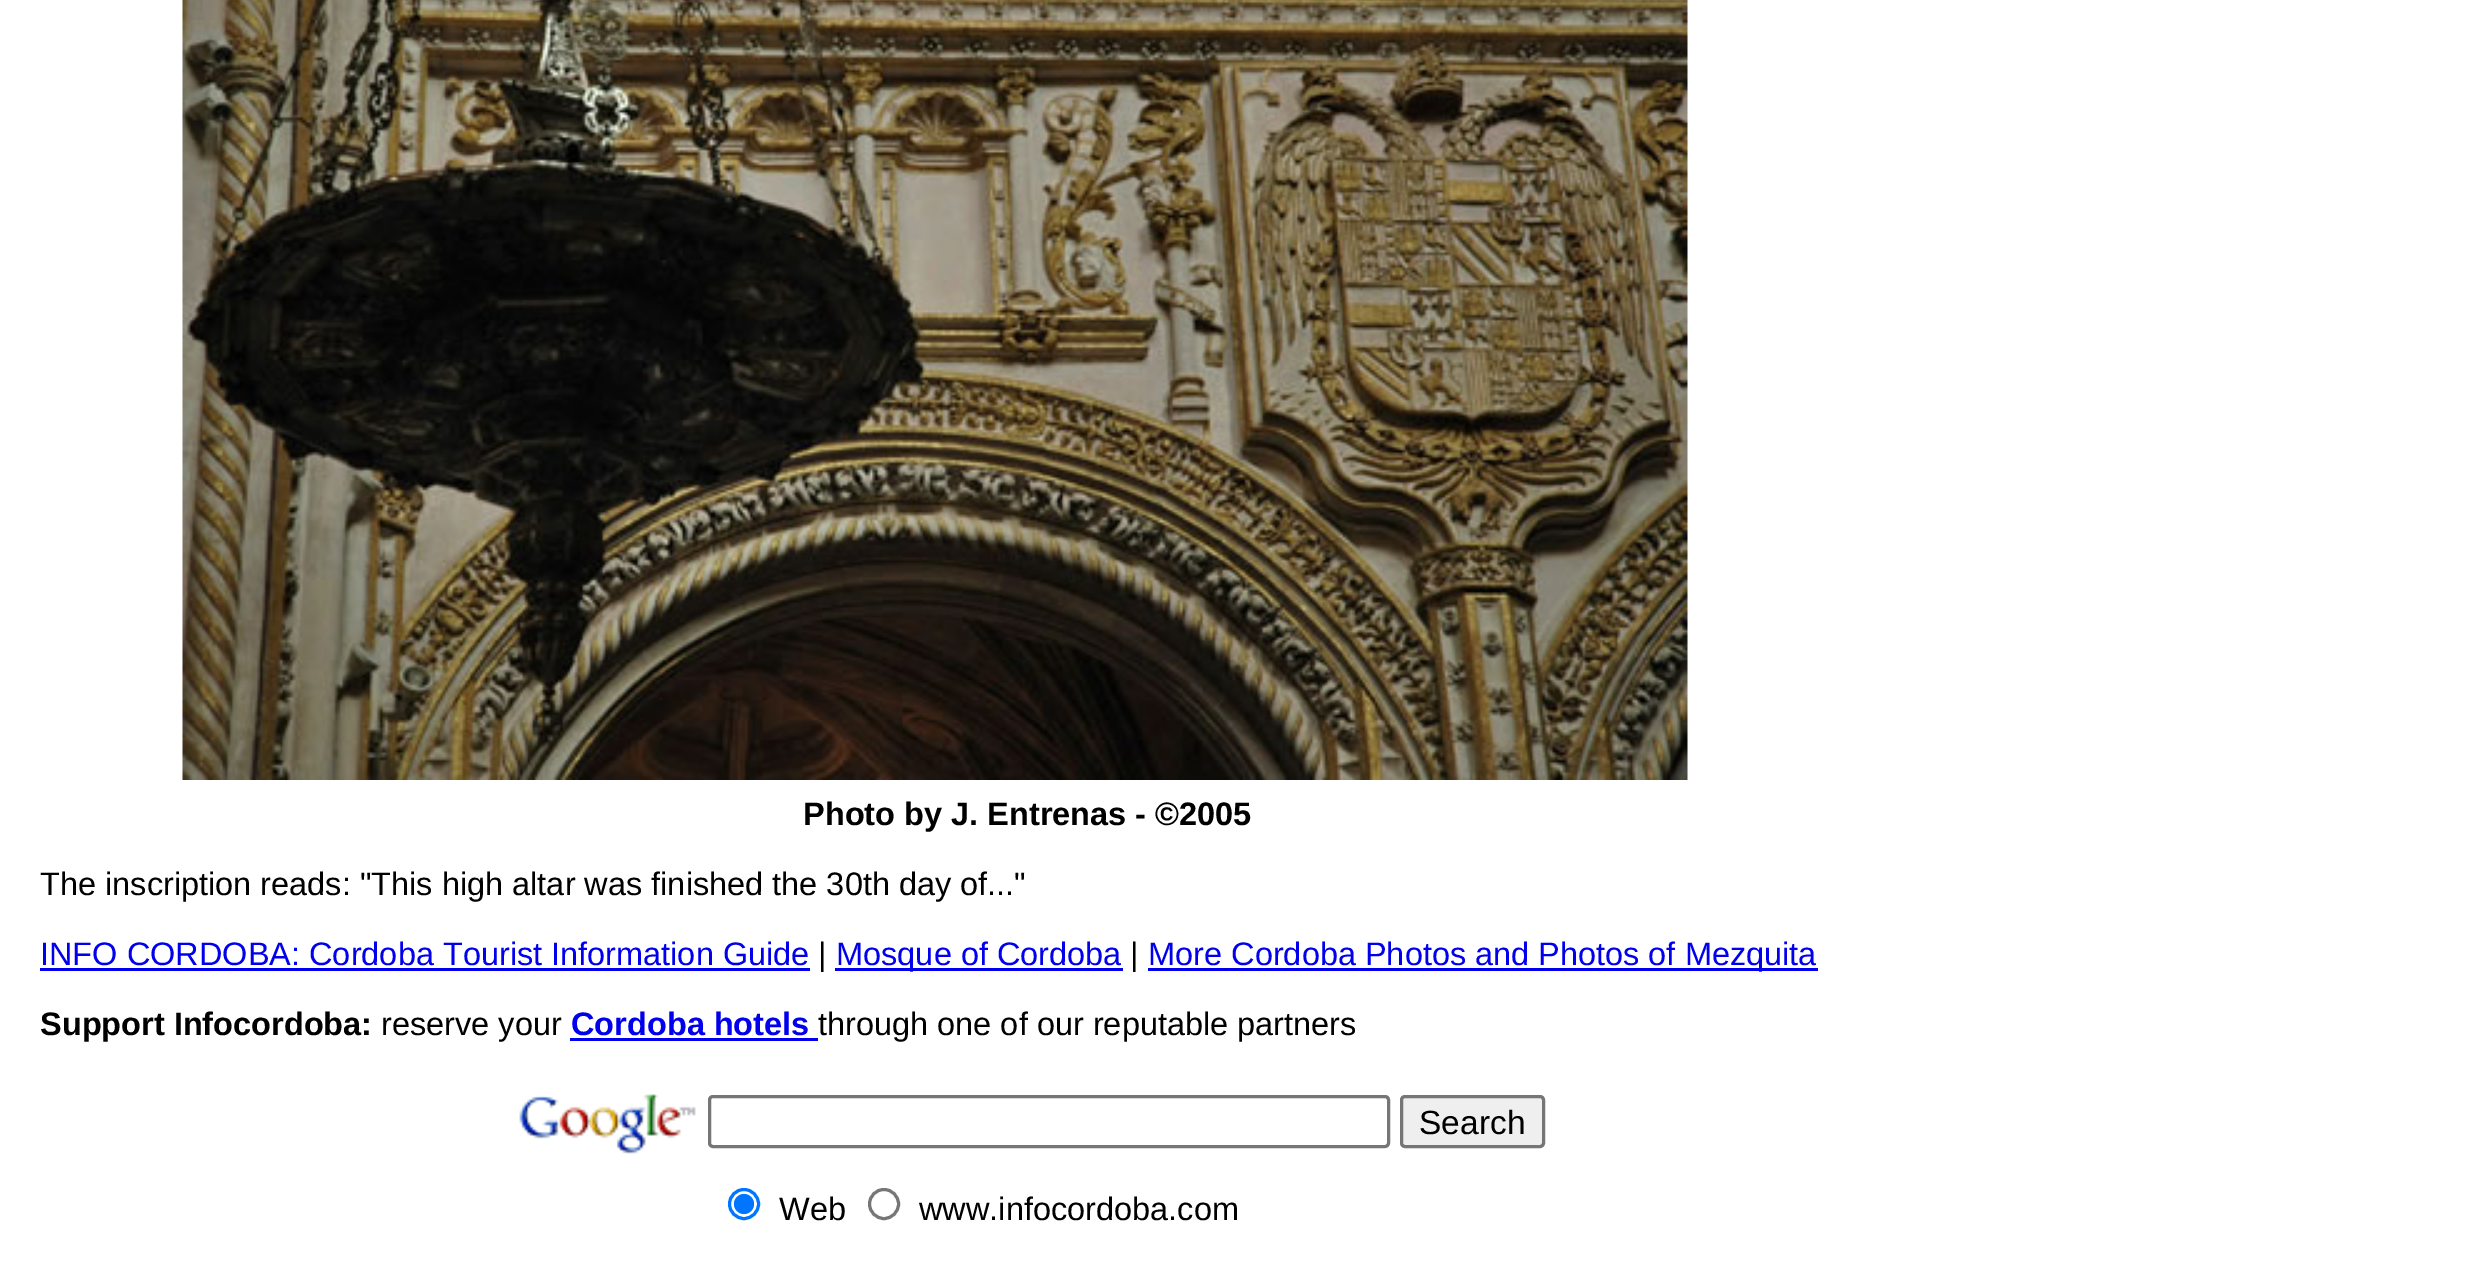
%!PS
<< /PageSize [2488 1263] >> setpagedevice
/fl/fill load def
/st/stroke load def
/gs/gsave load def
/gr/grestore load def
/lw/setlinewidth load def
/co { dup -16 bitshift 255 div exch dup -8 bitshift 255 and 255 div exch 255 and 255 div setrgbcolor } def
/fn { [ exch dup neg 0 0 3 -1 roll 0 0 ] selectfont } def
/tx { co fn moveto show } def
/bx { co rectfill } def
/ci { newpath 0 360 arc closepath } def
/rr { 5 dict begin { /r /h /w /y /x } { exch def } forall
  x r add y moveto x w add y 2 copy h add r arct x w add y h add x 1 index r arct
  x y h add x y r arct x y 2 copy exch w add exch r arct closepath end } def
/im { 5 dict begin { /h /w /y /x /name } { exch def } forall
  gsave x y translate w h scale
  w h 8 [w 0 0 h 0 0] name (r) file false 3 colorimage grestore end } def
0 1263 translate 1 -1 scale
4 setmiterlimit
0 0 2488 1263 16#FFFFFF bx
(media/1.raw) 182 0 1506 780 im
40 968 770 3 16#0000EE bx
835 968 288 3 16#0000EE bx
1148 968 670 3 16#0000EE bx
570 1038 248 3 16#0000EE bx
(media/2.raw) 519 1094 177 60 im
16#767676 co
3 lw
709.5 1096.5 679 50 3.5 rr st
16#EFEFEF co
1401.5 1096.5 142 50 3.5 rr gs fl gr
16#767676 co
st
16#0075FF co
744 1204 14.5 ci st
744 1204 10 ci fl
16#767676 co
884 1204 14.5 ci st
(Photo by J. Entrenas - ©2005) 803 825 /LiberationSans-Bold 32.5 16#000000 tx
(The inscription reads: "This high altar was finished the 30th day of...") 40 895 /LiberationSans-Regular 32.5 16#000000 tx
(INFO CORDOBA: Cordoba Tourist Information Guide) 40 965 /LiberationSans-Regular 32.5 16#0000EE tx
(|) 818 965 /LiberationSans-Regular 32.5 16#000000 tx
(Mosque of Cordoba) 836 965 /LiberationSans-Regular 32.5 16#0000EE tx
(|) 1130 965 /LiberationSans-Regular 32.5 16#000000 tx
(More Cordoba Photos and Photos of Mezquita) 1148 965 /LiberationSans-Regular 32.5 16#0000EE tx
(Support Infocordoba:) 40 1035 /LiberationSans-Bold 32.5 16#000000 tx
(reserve your) 381 1035 /LiberationSans-Regular 32.5 16#000000 tx
(Cordoba hotels) 571 1035 /LiberationSans-Bold 32.5 16#0000EE tx
(through one of our reputable partners) 818 1035 /LiberationSans-Regular 32.5 16#000000 tx
(Search) 1419 1134 /LiberationSans-Regular 33.5 16#000000 tx
(Web) 779 1220 /LiberationSans-Regular 32.5 16#000000 tx
(www.infocordoba.com) 919 1220 /LiberationSans-Regular 32.5 16#000000 tx
showpage
